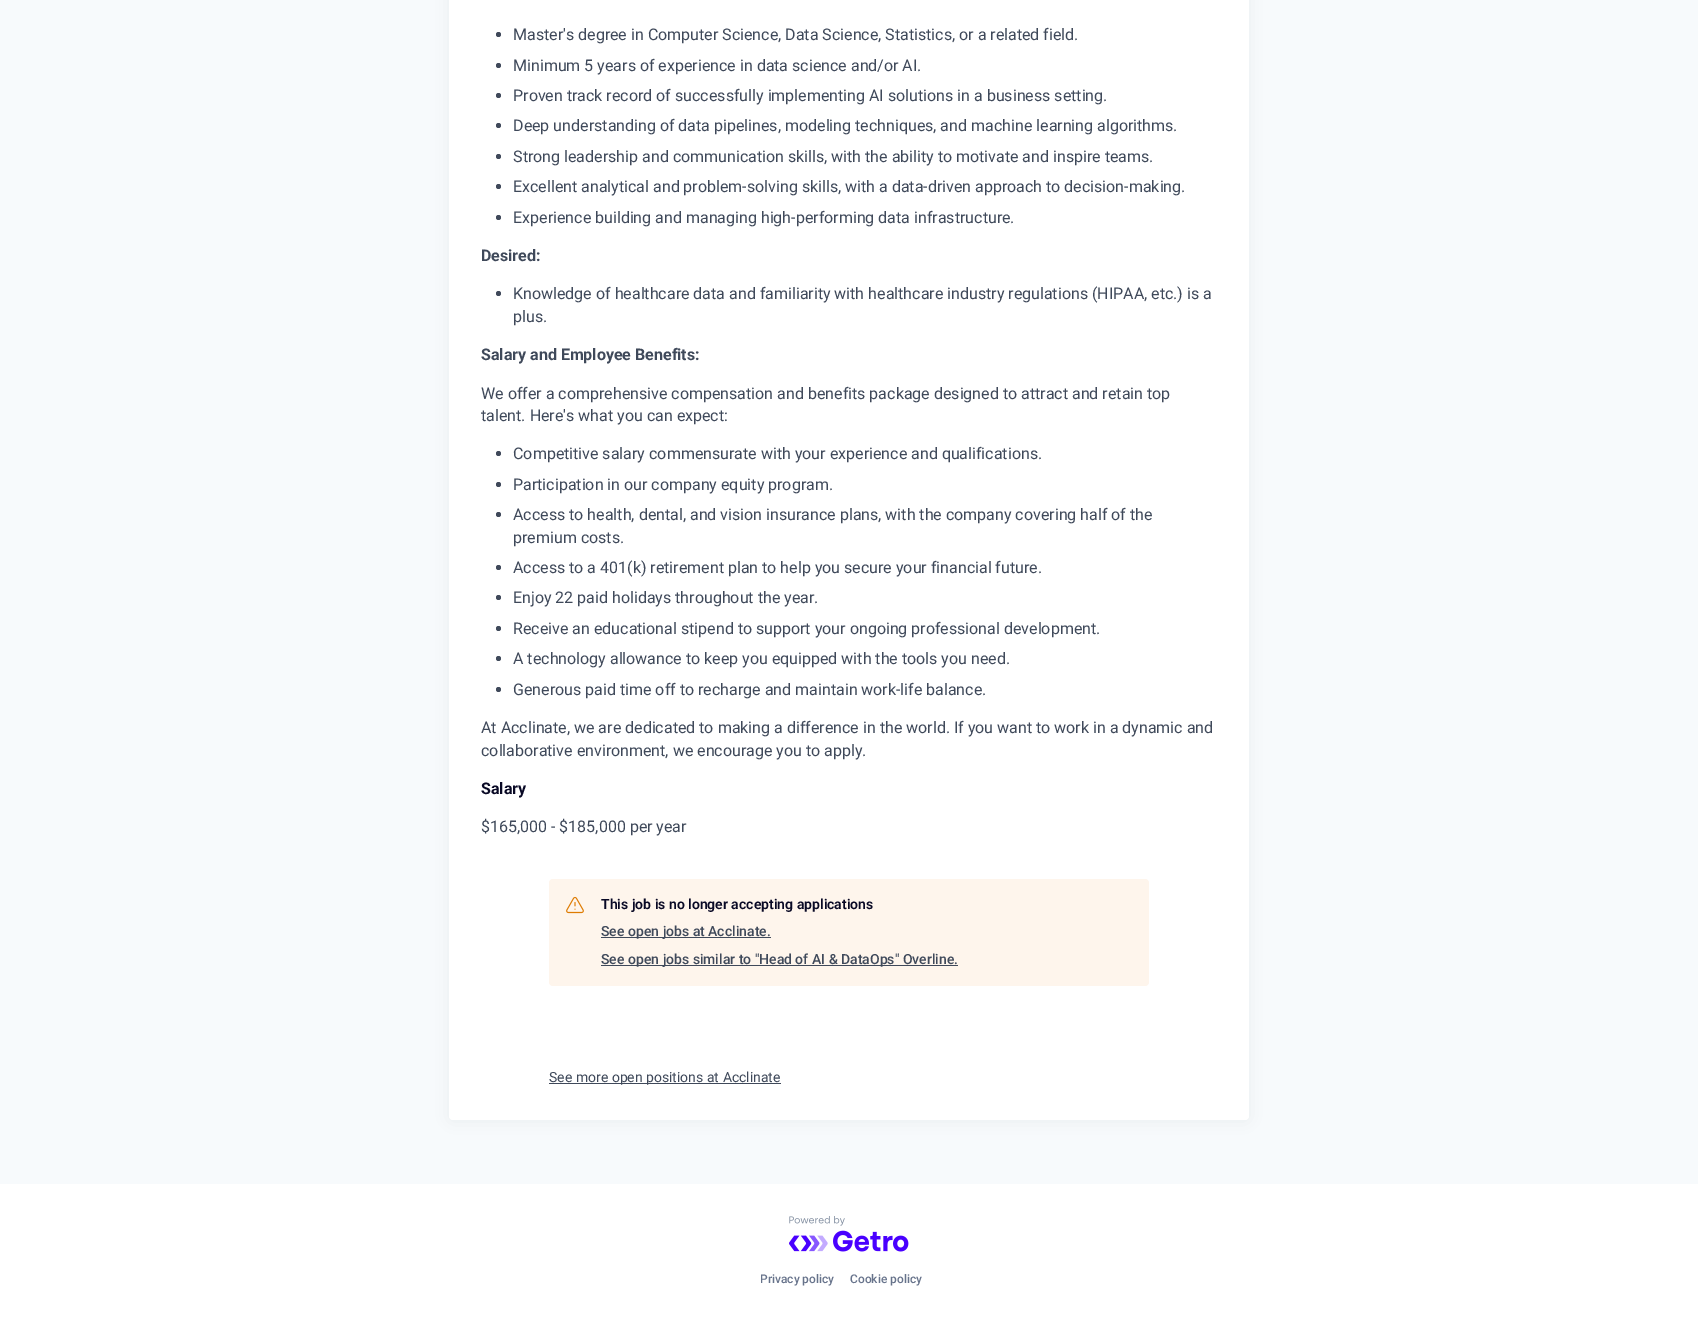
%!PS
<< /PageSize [1698 1322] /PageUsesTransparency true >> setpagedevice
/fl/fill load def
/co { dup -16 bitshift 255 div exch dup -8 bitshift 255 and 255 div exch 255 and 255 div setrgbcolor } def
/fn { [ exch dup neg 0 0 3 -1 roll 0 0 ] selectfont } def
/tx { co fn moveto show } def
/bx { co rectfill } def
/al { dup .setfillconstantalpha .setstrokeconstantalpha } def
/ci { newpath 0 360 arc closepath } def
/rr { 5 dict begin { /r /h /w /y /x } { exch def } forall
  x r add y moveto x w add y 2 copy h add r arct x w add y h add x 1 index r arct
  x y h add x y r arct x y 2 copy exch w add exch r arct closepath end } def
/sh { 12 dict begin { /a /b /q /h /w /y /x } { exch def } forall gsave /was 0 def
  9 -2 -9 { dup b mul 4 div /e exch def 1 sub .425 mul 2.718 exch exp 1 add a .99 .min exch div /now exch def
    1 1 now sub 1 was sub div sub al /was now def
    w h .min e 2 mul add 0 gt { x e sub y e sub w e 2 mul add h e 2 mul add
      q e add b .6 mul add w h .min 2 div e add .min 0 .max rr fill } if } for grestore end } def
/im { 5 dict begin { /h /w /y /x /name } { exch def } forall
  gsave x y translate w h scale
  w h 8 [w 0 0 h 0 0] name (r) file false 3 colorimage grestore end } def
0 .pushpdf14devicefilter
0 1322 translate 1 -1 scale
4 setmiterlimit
0 0 1698 1322 16#F7FAFC bx
16#1B2432 co
449 -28 800 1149 4 8 .06 sh
16#FFFFFF co
449 -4 800 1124 4 rr fl
16#3F495A co
498.5 34.5 2.5 ci fl
498.5 65.5 2.5 ci fl
498.5 95.5 2.5 ci fl
498.5 125.5 2.5 ci fl
498.5 156.5 2.5 ci fl
498.5 186.5 2.5 ci fl
498.5 217.5 2.5 ci fl
498.5 293.5 2.5 ci fl
498.5 453.5 2.5 ci fl
498.5 484.5 2.5 ci fl
498.5 514.5 2.5 ci fl
498.5 567.5 2.5 ci fl
498.5 597.5 2.5 ci fl
498.5 628.5 2.5 ci fl
498.5 658.5 2.5 ci fl
498.5 689.5 2.5 ci fl
16#FEF5EC co
549 879 600 107 4 rr fl
(media/1.raw) 566 896 18 18 im
601 937 170 1 16#3F495A bx
601 965 357 1 16#3F495A bx
549 1083 232 1 16#3F495A bx
0 1184 1698 138 16#FFFFFF bx
(media/2.raw) 789 1216 120 36 im
(Master's degree in Computer Science, Data Science, Statistics, or a related field.) 513 40 /Roboto-Regular 16 16#3F495A tx
(Minimum 5 years of experience in data science and/or AI.) 513 71 /Roboto-Regular 16 16#3F495A tx
(Proven track record of successfully implementing AI solutions in a business setting.) 513 101 /Roboto-Regular 16 16#3F495A tx
(Deep understanding of data pipelines, modeling techniques, and machine learning algorithms.) 513 131 /Roboto-Regular 16 16#3F495A tx
(Strong leadership and communication skills, with the ability to motivate and inspire teams.) 513 162 /Roboto-Regular 16 16#3F495A tx
(Excellent analytical and problem-solving skills, with a data-driven approach to decision-making.) 513 192 /Roboto-Regular 16 16#3F495A tx
(Experience building and managing high-performing data infrastructure.) 513 223 /Roboto-Regular 16 16#3F495A tx
(Desired:) 481 261 /Roboto-Bold 16 16#3F495A tx
(Knowledge of healthcare data and familiarity with healthcare industry regulations \(HIPAA, etc.\) is a) 513 299 /Roboto-Regular 16 16#3F495A tx
(plus.) 513 322 /Roboto-Regular 16 16#3F495A tx
(Salary and Employee Benefits:) 481 360 /Roboto-Bold 16 16#3F495A tx
(We offer a comprehensive compensation and benefits package designed to attract and retain top) 481 399 /Roboto-Regular 16 16#3F495A tx
(talent. Here's what you can expect:) 481 421 /Roboto-Regular 16 16#3F495A tx
(Competitive salary commensurate with your experience and qualifications.) 513 459 /Roboto-Regular 16 16#3F495A tx
(Participation in our company equity program.) 513 490 /Roboto-Regular 16 16#3F495A tx
(Access to health, dental, and vision insurance plans, with the company covering half of the) 513 520 /Roboto-Regular 16 16#3F495A tx
(premium costs.) 513 543 /Roboto-Regular 16 16#3F495A tx
(Access to a 401\(k\) retirement plan to help you secure your financial future.) 513 573 /Roboto-Regular 16 16#3F495A tx
(Enjoy 22 paid holidays throughout the year.) 513 603 /Roboto-Regular 16 16#3F495A tx
(Receive an educational stipend to support your ongoing professional development.) 513 634 /Roboto-Regular 16 16#3F495A tx
(A technology allowance to keep you equipped with the tools you need.) 513 664 /Roboto-Regular 16 16#3F495A tx
(Generous paid time off to recharge and maintain work-life balance.) 513 695 /Roboto-Regular 16 16#3F495A tx
(At Acclinate, we are dedicated to making a difference in the world. If you want to work in a dynamic and) 481 733 /Roboto-Regular 16 16#3F495A tx
(collaborative environment, we encourage you to apply.) 481 756 /Roboto-Regular 16 16#3F495A tx
(Salary) 481 794 /Roboto-Bold 16 16#090925 tx
($165,000 - $185,000 per year) 481 832 /Roboto-Regular 16 16#3F495A tx
(This job is no longer accepting applications) 601 909 /Roboto-SemiBold 14 16#090925 tx
(See open jobs at Acclinate.) 601 936 /Roboto-Medium 14 16#3F495A tx
(See open jobs similar to "Head of AI & DataOps" Overline.) 601 964 /Roboto-Medium 14 16#3F495A tx
(See more open positions at Acclinate) 549 1082 /Roboto-Regular 14 16#3F495A tx
(Privacy policy) 760 1283 /Roboto-Medium 12 16#67738B tx
(Cookie policy) 850 1283 /Roboto-Medium 12 16#67738B tx
.poppdf14devicefilter showpage
